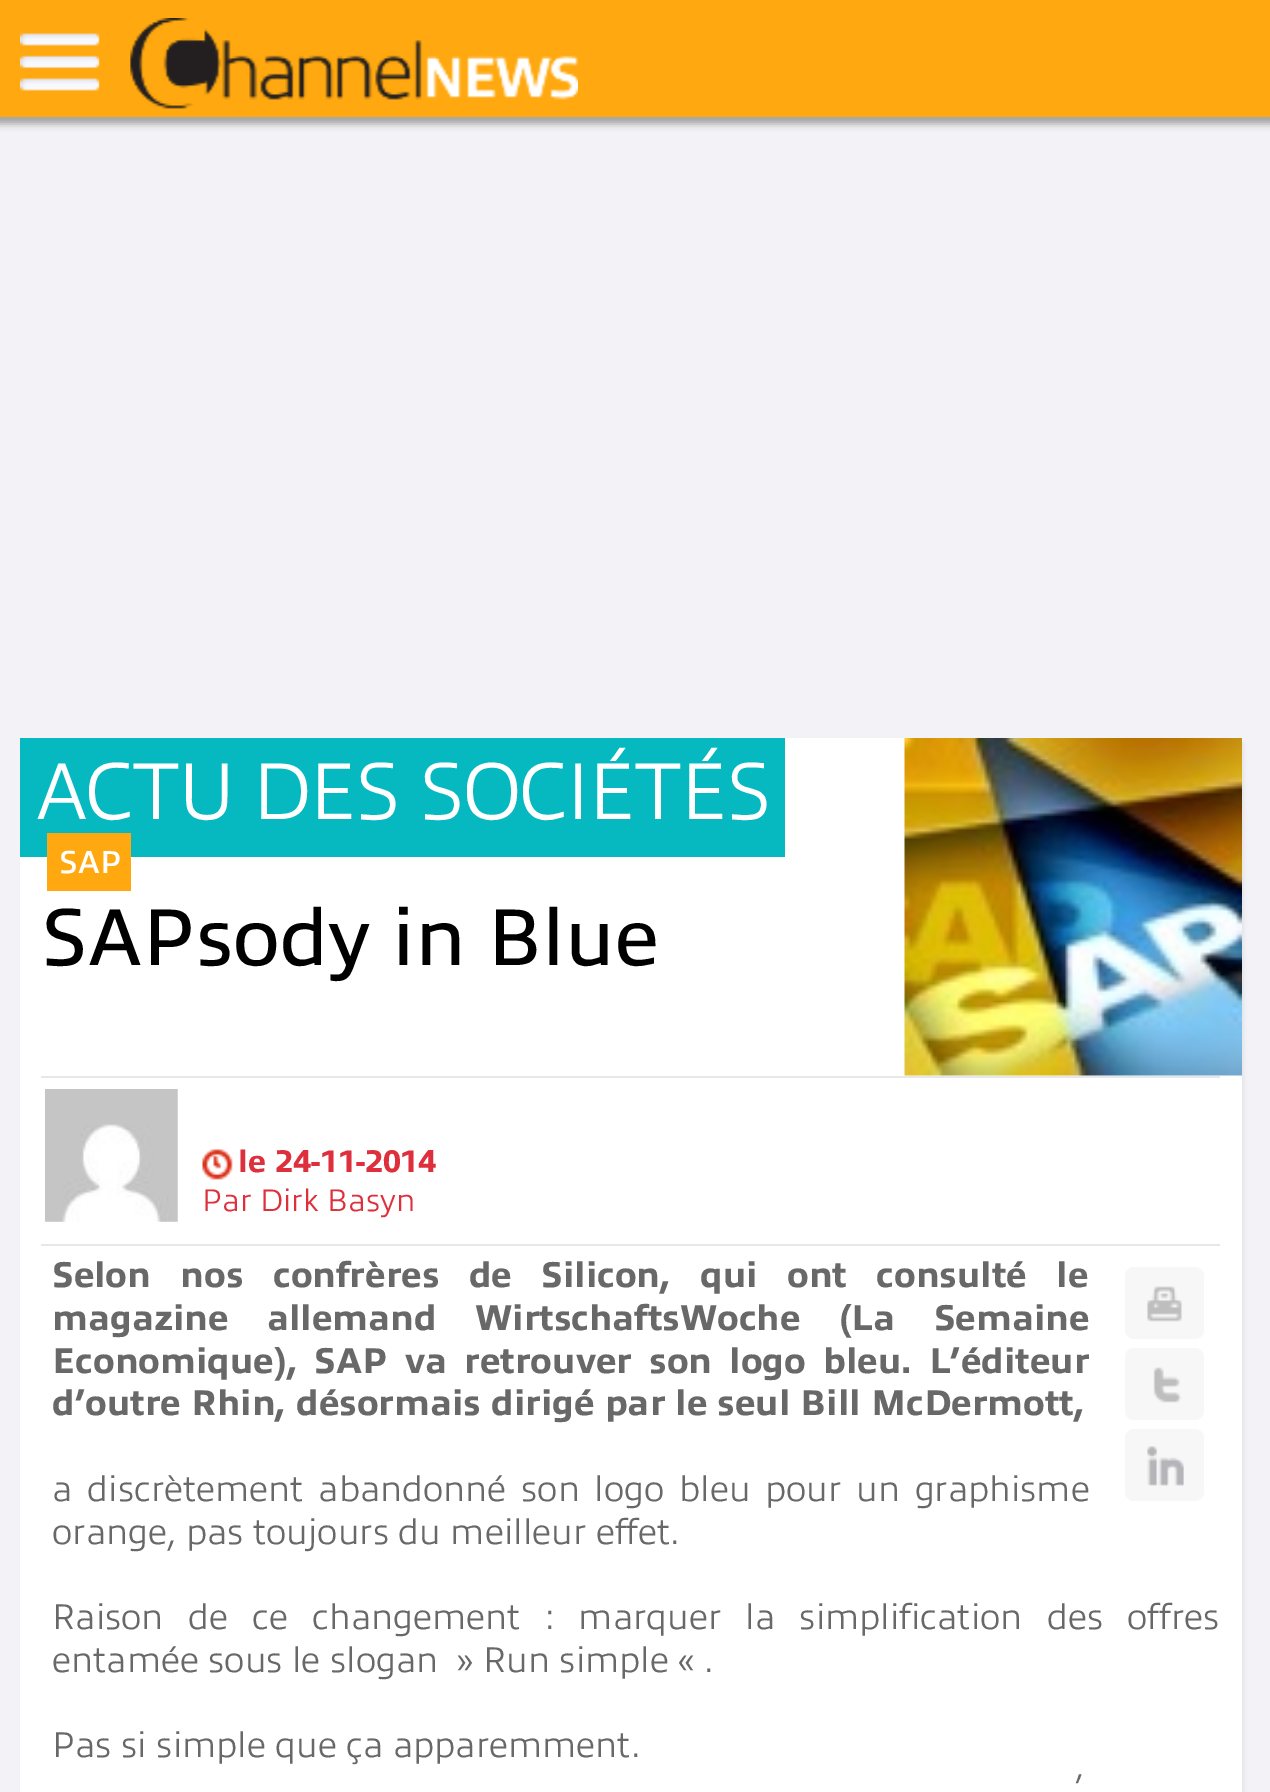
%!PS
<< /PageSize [1270 1792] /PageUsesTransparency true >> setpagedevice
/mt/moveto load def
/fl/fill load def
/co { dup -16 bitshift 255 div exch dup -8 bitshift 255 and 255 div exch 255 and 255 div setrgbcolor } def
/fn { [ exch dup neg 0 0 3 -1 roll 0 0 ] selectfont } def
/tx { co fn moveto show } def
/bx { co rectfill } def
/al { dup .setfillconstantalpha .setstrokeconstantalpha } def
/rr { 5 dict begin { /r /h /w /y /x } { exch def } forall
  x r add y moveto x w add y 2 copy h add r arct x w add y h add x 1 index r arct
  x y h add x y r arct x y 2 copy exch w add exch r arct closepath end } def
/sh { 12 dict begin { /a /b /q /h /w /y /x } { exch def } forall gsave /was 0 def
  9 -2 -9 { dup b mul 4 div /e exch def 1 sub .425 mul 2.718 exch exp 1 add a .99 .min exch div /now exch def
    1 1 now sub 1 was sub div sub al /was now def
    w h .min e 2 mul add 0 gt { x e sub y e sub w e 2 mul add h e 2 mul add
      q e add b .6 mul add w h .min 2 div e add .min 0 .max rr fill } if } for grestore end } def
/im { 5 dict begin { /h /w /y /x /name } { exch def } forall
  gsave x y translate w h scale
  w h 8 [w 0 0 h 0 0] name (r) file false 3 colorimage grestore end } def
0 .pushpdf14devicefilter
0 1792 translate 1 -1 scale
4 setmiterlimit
0 0 1270 1792 16#F3F2F6 bx
16#A3A3A4 co
-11 -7 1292 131 0 3.5 1 sh
0 0 1270 117 16#FFA80F bx
(media/1.raw) 20 33 80 58 im
(media/2.raw) 130 18 448 91 im
16#000000 co
23 743 1221 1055 0 2 .06 sh
20 738 1222 1054 16#FFFFFF bx
20 738 765 119 16#06B9C0 bx
(media/3.raw) 904 738 338 338 im
47 833 84 58 16#FFA80F bx
41 1076 1179 2 16#E7E7E9 bx
41 1244 1179 2 16#E7E7E9 bx
(media/4.raw) 45 1089 133 133 im
(media/5.raw) 202 1149 31 31 im
16#F7F7F7 co
1125 1267 79 72 9 rr fl
(media/6.raw) 1147 1286 35 36 im
1125 1348 79 72 9 rr fl
(media/7.raw) 1153 1367 29 36 im
1125 1429 79 72 9 rr fl
(media/8.raw) 1147 1446 37 40 im
/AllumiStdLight-Light 81 fn
16#FFFFFF co
36 819 mt -2.25 0 (ACTU DES SOCIÉTÉS) ashow
(SAP) 59 873 /AllumiStdLight-Bold 32 16#FFFFFF tx
(SAPsody in Blue) 41 965 /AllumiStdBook-Regular 81 16#000000 tx
(le 24-11-2014) 238 1172 /AllumiStdBook-ExtraBold 31.5 16#DE303C tx
(Par Dirk Basyn) 202 1211 /AllumiStdLight-Light 31.5 16#DE303C tx
/AllumiStdBook-ExtraBold 36 fn
16#686868 co
52 1287 mt 19.25 0 32 (Selon nos confrères de Silicon, qui ont consulté le) widthshow
52 1330 mt 28 0 32 (magazine allemand WirtschaftsWoche \(La Semaine) widthshow
52 1373 mt 7 0 32 (Economique\), SAP va retrouver son logo bleu. L’éditeur) widthshow
(d’outre Rhin, désormais dirigé par le seul Bill McDermott,) 52 1415 /AllumiStdBook-ExtraBold 36 16#686868 tx
/AllumiStdLight-Light 36 fn
52 1501 mt 5.25 0 32 (a discrètement abandonné son logo bleu pour un graphisme) widthshow
(orange, pas toujours du meilleur effet.) 52 1544 /AllumiStdLight-Light 36 16#686868 tx
52 1629 mt 14.75 0 32 (Raison de ce changement : marquer la simplification des offres) widthshow
(entamée sous le slogan  » Run simple « .) 52 1672 /AllumiStdLight-Light 36 16#686868 tx
(Pas si simple que ça apparemment.) 52 1757 /AllumiStdLight-Light 36 16#686868 tx
1074 1800 mt 14 0 32 (’) widthshow
.poppdf14devicefilter showpage
